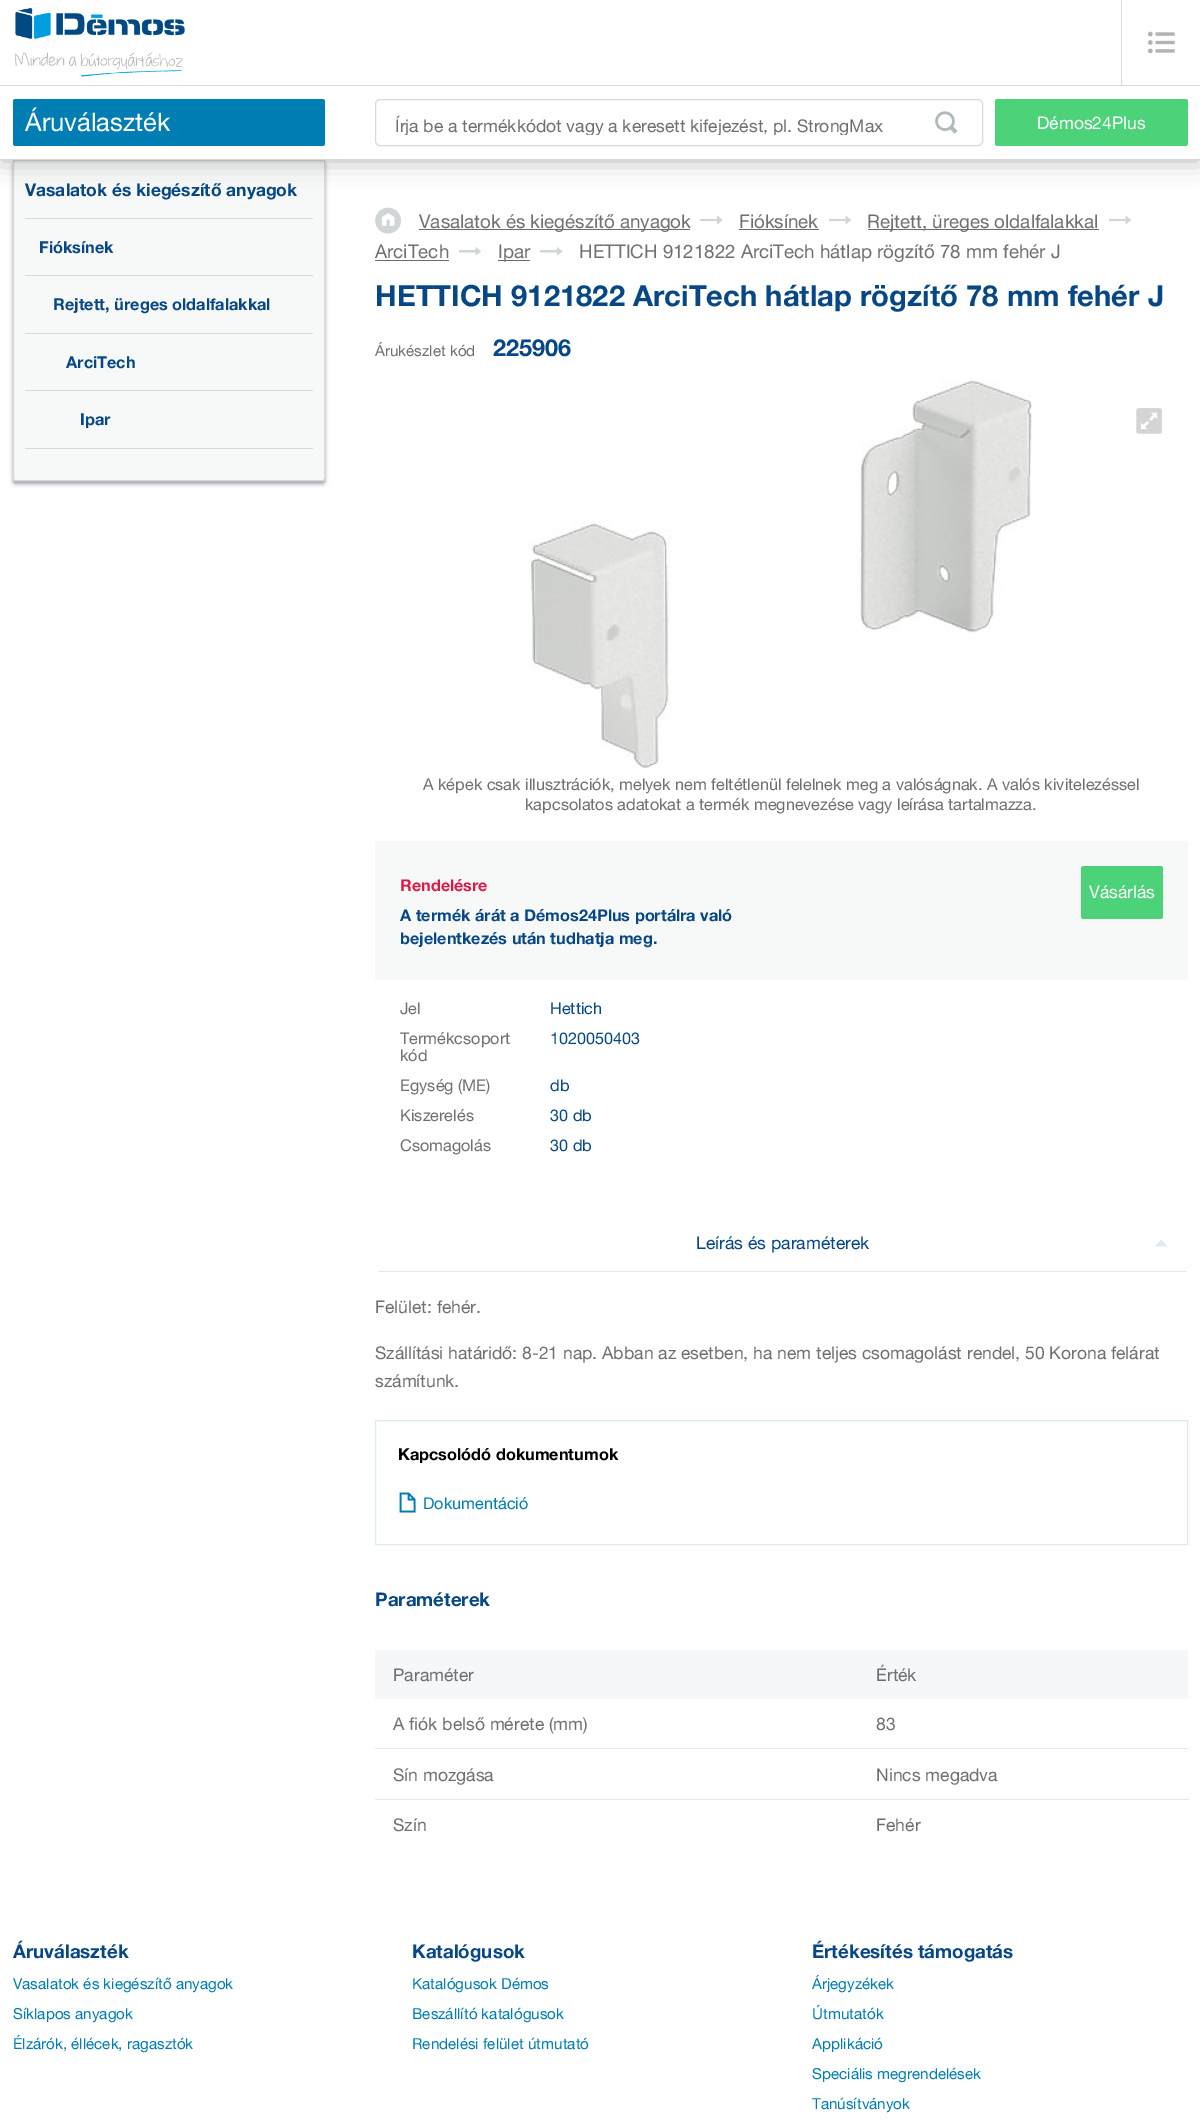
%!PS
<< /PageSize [1200 2124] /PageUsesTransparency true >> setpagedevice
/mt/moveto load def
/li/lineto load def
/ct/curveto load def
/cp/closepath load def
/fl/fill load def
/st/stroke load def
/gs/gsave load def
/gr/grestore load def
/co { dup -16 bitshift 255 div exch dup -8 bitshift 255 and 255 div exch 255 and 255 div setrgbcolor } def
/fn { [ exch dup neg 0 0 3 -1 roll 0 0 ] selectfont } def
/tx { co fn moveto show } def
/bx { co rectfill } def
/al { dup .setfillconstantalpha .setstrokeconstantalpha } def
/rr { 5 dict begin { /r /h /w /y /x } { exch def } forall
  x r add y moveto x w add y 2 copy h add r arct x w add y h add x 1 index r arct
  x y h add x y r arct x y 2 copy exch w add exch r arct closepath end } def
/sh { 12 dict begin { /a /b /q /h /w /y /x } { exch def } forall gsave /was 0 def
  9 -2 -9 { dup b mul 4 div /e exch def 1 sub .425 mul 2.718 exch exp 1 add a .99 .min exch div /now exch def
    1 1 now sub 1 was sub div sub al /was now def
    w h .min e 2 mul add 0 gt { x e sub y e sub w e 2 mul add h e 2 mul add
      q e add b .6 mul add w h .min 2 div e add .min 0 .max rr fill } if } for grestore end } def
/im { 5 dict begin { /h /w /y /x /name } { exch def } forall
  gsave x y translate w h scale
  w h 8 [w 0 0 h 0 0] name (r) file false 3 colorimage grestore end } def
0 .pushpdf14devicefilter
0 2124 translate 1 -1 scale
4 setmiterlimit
0 0 1200 2124 16#FFFFFF bx
16#69777C co
13 163 312 321 2.5 2 .66 sh
16#F7F8F8 co
13.5 160.5 mt 324.5 160.5 li 324.5 478.5 li 324.5 479.5 323.5 480.5 322.5 480.5 ct 15.5 480.5 li 14.5 480.5 13.5 479.5 13.5 478.5 ct cp gs fl gr
16#D9D9D9 co
st
16#000000 co
0 0 1200 160 0 12.5 .3 sh
0 0 1200 159 16#FFFFFF bx
0 159 1200 1 16#D9D9D9 bx
0 85 1200 1 16#D9D9D9 bx
16#007DB3 co
13 99 312 47 2.5 rr fl
(media/1.raw) 15 8 170 69 im
1121 0 1 85 16#D9D9D9 bx
(media/2.raw) 1147 31 28 23 im
375.5 99.5 607 46 4.5 rr st
(media/3.raw) 935 111 23 23 im
16#4CD278 co
995 99 193 47 2.5 rr fl
25 218 288 1 16#D9D9D9 bx
25 275 288 1 16#D9D9D9 bx
25 333 288 1 16#D9D9D9 bx
25 390 288 1 16#D9D9D9 bx
25 448 288 1 16#D9D9D9 bx
(media/4.raw) 375 207 26 27 im
419 229 271 1 16#6B6B6B bx
16#D0D6D7 co
700 219 mt 700 221 li 717 221 li 717 224.5 li 722.5 220 li 717 215.5 li 717 219 li cp fl
739 229 80 1 16#6B6B6B bx
16#D0D6D7 co
829 219 mt 829 221 li 845.5 221 li 845.5 224.5 li 851 220 li 845.5 215.5 li 845.5 219 li cp fl
868 229 231 1 16#6B6B6B bx
16#D0D6D7 co
1109 219 mt 1109 221 li 1125.5 221 li 1125.5 224.5 li 1131 220 li 1125.5 215.5 li 1125.5 219 li cp fl
375 260 74 1 16#6B6B6B bx
16#D0D6D7 co
459 250 mt 459 252.5 li 475.5 252.5 li 475.5 255.5 li 481 251.5 li 475.5 247 li 475.5 250 li cp fl
498 260 32 1 16#6B6B6B bx
16#D0D6D7 co
540 250 mt 540 252.5 li 557 252.5 li 557 255.5 li 562.5 251.5 li 557 247 li 557 250 li cp fl
(media/5.raw) 531 380 501 388 im
(media/6.raw) 1136 408 26 26 im
375 841 813 139 16#F7F8F8 bx
16#4CD278 co
1081 866 82 53 2.5 rr fl
16#DDEAF2 co
1187 1272 mt 378 1272 li 379 1271 li 1186 1271 li cp fl
1167.5 1246.5 mt 1161 1239.5 li 1155 1246.5 li cp fl
375.5 1420.5 812 124 rectstroke
(media/7.raw) 399 1492 17 21 im
375 1650 813 49 16#F5F7F8 bx
375 1748 814 1 16#DDEAF2 bx
375 1799 814 1 16#DDEAF2 bx
(Áruválaszték) 25 131 /HelveticaNeue-Regular 25.5 16#FFFFFF tx
gs
395 114 506 21 rectclip
(Írja be a termékkódot vagy a keresett kifejezést, pl. StrongMax) 395 132 /HelveticaNeue-Regular 17.5 16#707070 tx
gr
(Démos24Plus) 1037 129 /HelveticaNeue-Regular 17.5 16#FFFFFF tx
(Vasalatok és kiegészítő anyagok) 25 196 /HelveticaNeue-Bold 17.5 16#074786 tx
(Fióksínek) 39 253 /HelveticaNeue-Bold 16.3 16#074786 tx
(Rejtett, üreges oldalfalakkal) 53 310 /HelveticaNeue-Bold 16.3 16#074786 tx
(ArciTech) 66 368 /HelveticaNeue-Bold 16.3 16#074786 tx
(Ipar) 80 425 /HelveticaNeue-Bold 16.3 16#074786 tx
(Vasalatok és kiegészítő anyagok) 419 228 /HelveticaNeue-Regular 18.75 16#707070 tx
(Fióksínek) 739 228 /HelveticaNeue-Regular 18.75 16#707070 tx
(Rejtett, üreges oldalfalakkal) 867 228 /HelveticaNeue-Regular 18.75 16#707070 tx
(ArciTech) 375 258 /HelveticaNeue-Regular 18.75 16#707070 tx
(Ipar) 498 258 /HelveticaNeue-Regular 18.75 16#707070 tx
(HETTICH 9121822 ArciTech hátlap rögzítő 78 mm fehér J) 579 258 /HelveticaNeue-Regular 18.75 16#707070 tx
(HETTICH 9121822 ArciTech hátlap rögzítő 78 mm fehér J) 375 306 /HelveticaNeue-Bold 29.2 16#074786 tx
(Árukészlet kód) 375 356 /HelveticaNeue-Regular 15.2 16#707070 tx
(225906) 493 356 /HelveticaNeue-Bold 23.5 16#074786 tx
(A képek csak illusztrációk, melyek nem feltétlenül felelnek meg a valóságnak. A valós kivitelezéssel) 423 790 /HelveticaNeue-Regular 16.25 16#707070 tx
(kapcsolatos adatokat a termék megnevezése vagy leírása tartalmazza.) 525 810 /HelveticaNeue-Regular 16.25 16#707070 tx
(Rendelésre) 400 891 /HelveticaNeue-Bold 16.25 16#DE1746 tx
(A termék árát a Démos24Plus portálra való) 400 921 /HelveticaNeue-Bold 16.25 16#074786 tx
(bejelentkezés után tudhatja meg.) 400 944 /HelveticaNeue-Bold 16.25 16#074786 tx
(Vásárlás) 1089 898 /HelveticaNeue-Regular 17.5 16#FFFFFF tx
(Jel) 400 1014 /HelveticaNeue-Regular 16.25 16#707070 tx
(Hettich) 550 1014 /HelveticaNeue-Regular 16.25 16#074786 tx
(Termékcsoport) 400 1044 /HelveticaNeue-Regular 16.25 16#707070 tx
(kód) 400 1061 /HelveticaNeue-Regular 16.25 16#707070 tx
(1020050403) 550 1044 /HelveticaNeue-Regular 16.25 16#074786 tx
(Egység \(ME\)) 400 1091 /HelveticaNeue-Regular 16.25 16#707070 tx
(db) 550 1091 /HelveticaNeue-Regular 16.25 16#074786 tx
(Kiszerelés) 400 1121 /HelveticaNeue-Regular 16.25 16#707070 tx
(30 db) 550 1121 /HelveticaNeue-Regular 16.25 16#074786 tx
(Csomagolás) 400 1151 /HelveticaNeue-Regular 16.25 16#707070 tx
(30 db) 550 1151 /HelveticaNeue-Regular 16.25 16#074786 tx
(Leírás és paraméterek) 696 1249 /HelveticaNeue-Regular 17.5 16#074786 tx
(Felület: fehér.) 375 1313 /HelveticaNeue-Regular 17.5 16#707070 tx
(Szállítási határidő: 8-21 nap. Abban az esetben, ha nem teljes csomagolást rendel, 50 Korona felárat) 375 1359 /HelveticaNeue-Regular 17.5 16#707070 tx
(számítunk.) 375 1387 /HelveticaNeue-Regular 17.5 16#707070 tx
(Kapcsolódó dokumentumok) 398 1460 /HelveticaNeue-Bold 16.3 16#000000 tx
(Dokumentáció) 423 1509 /HelveticaNeue-Regular 16.25 16#007DB3 tx
(Paraméterek) 375 1606 /HelveticaNeue-Bold 18.75 16#074786 tx
(Paraméter) 393 1681 /HelveticaNeue-Regular 17.5 16#707070 tx
(Érték) 876 1681 /HelveticaNeue-Regular 17.5 16#707070 tx
(A fiók belső mérete \(mm\)) 393 1730 /HelveticaNeue-Regular 17.5 16#707070 tx
(83) 876 1730 /HelveticaNeue-Regular 17.5 16#707070 tx
(Sín mozgása) 393 1781 /HelveticaNeue-Regular 17.5 16#707070 tx
(Nincs megadva) 876 1781 /HelveticaNeue-Regular 17.5 16#707070 tx
(Szín) 393 1831 /HelveticaNeue-Regular 17.5 16#707070 tx
(Fehér) 876 1831 /HelveticaNeue-Regular 17.5 16#707070 tx
(Áruválaszték) 13 1958 /HelveticaNeue-Bold 18.75 16#074786 tx
(Vasalatok és kiegészítő anyagok) 13 1989 /HelveticaNeue-Regular 15.2 16#007DB3 tx
(Síklapos anyagok) 13 2019 /HelveticaNeue-Regular 15.2 16#007DB3 tx
(Élzárók, éllécek, ragasztók) 13 2049 /HelveticaNeue-Regular 15.2 16#007DB3 tx
(Katalógusok) 412 1958 /HelveticaNeue-Bold 18.75 16#074786 tx
(Katalógusok Démos) 412 1989 /HelveticaNeue-Regular 15.2 16#007DB3 tx
(Beszállító katalógusok) 412 2019 /HelveticaNeue-Regular 15.2 16#007DB3 tx
(Rendelési felület útmutató) 412 2049 /HelveticaNeue-Regular 15.2 16#007DB3 tx
(Értékesítés támogatás) 812 1958 /HelveticaNeue-Bold 18.75 16#074786 tx
(Árjegyzékek) 812 1989 /HelveticaNeue-Regular 15.2 16#007DB3 tx
(Útmutatók) 812 2019 /HelveticaNeue-Regular 15.2 16#007DB3 tx
(Applikáció) 812 2049 /HelveticaNeue-Regular 15.2 16#007DB3 tx
(Speciális megrendelések) 812 2079 /HelveticaNeue-Regular 15.2 16#007DB3 tx
(Tanúsítványok) 812 2109 /HelveticaNeue-Regular 15.2 16#007DB3 tx
.poppdf14devicefilter showpage
